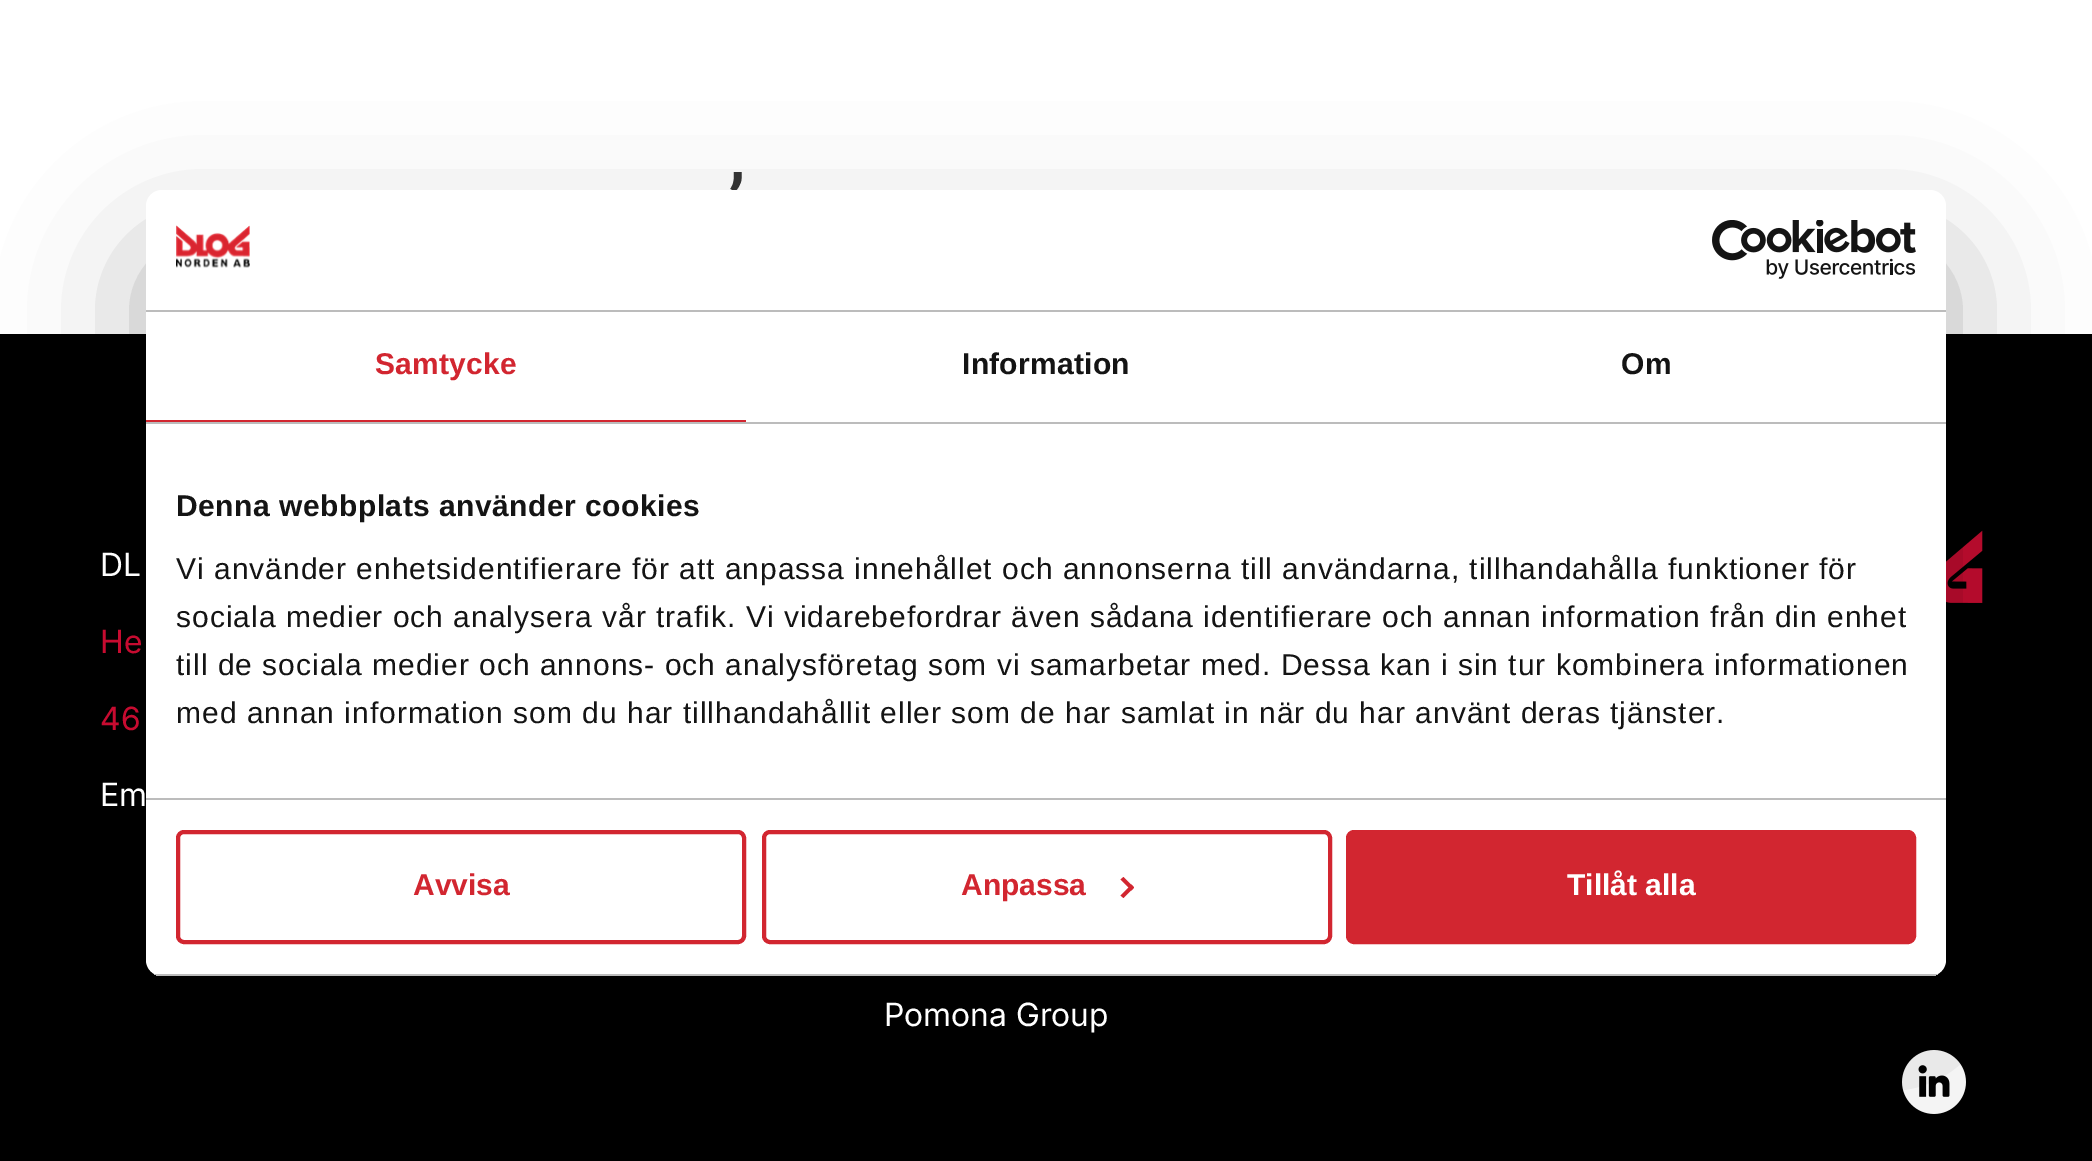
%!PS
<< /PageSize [2092 1161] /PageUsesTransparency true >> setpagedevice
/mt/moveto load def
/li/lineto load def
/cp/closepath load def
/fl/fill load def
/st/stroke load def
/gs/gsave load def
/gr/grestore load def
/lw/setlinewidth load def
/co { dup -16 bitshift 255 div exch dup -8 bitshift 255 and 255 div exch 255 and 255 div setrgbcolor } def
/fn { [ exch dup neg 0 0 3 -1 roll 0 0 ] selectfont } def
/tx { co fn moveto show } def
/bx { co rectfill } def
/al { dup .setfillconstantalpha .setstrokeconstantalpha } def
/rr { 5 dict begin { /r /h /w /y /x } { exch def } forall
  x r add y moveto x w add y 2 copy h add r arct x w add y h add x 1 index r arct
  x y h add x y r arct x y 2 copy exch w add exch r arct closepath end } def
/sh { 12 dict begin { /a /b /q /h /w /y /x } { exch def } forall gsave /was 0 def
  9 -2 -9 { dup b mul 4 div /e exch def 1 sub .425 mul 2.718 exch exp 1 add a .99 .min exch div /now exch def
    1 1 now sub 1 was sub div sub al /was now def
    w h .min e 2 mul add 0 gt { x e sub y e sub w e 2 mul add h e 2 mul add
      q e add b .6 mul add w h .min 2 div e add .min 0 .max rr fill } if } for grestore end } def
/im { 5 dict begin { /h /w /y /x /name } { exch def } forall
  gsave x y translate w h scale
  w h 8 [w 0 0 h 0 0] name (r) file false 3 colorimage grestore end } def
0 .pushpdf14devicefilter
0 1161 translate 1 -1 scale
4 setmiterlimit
0 0 2092 1161 16#FFFFFF bx
0 334 2092 827 16#000000 bx
(media/3.raw) 1946 530 37 73 im
(media/4.raw) 1902 1050 64 64 im
146 254 1800 786 16 68 .3 sh
(’) 728 232 /Roboto-Medium 80 16#333333 tx
16#FFFFFF co
146 190 1800 786 16 rr fl
146 310 1800 2 16#BCBCBC bx
(media/1.raw) 176 225 74 43 im
(media/2.raw) 1712 220 204 59 im
146 422 1800 2 16#BCBCBC bx
146 420 600 2 16#D22630 bx
/LiberationSans-Bold 30 fn
375 374 mt .25 0 (Samtycke) ashow
16#141414 co
962 374 mt .25 0 (Information) ashow
1621 374 mt .25 0 (Om) ashow
146 798 1800 2 16#BCBCBC bx
16#141414 co
176 516 mt .5 0 (Denna webbplats använder cookies) ashow
/LiberationSans-Regular 30 fn
176 579 mt 1 0 (Vi använder enhetsidentifierare för att anpassa innehållet och annonserna till användarna, tillhandahålla funktioner för) ashow
176 627 mt 1 0 (sociala medier och analysera vår trafik. Vi vidarebefordrar även sådana identifierare och annan information från din enhet) ashow
176 675 mt 1 0 (till de sociala medier och annons- och analysföretag som vi samarbetar med. Dessa kan i sin tur kombinera informationen) ashow
176 723 mt 1 0 (med annan information som du har tillhandahållit eller som de har samlat in när du har använt deras tjänster.) ashow
gs
146 190 1800 786 16 rr clip newpath
146 974 1800 2 16#BCBCBC bx
gr
16#D22630 co
4 lw
178 832 566 110 6 rr st
(Avvisa) 413 895 /LiberationSans-Bold 30 16#D22630 tx
764 832 566 110 6 rr st
(Anpassa) 961 895 /LiberationSans-Bold 30 16#D22630 tx
1123.5 877 mt 1134 887.5 li 1131.5 890.5 li 1120.5 879.5 li cp fl
1131.5 884.5 mt 1134 887.5 li 1123.5 898 li 1120.5 895.5 li cp fl
1348 832 566 110 6 rr gs fl gr
st
(Tillåt alla) 1567 895 /LiberationSans-Bold 30 16#FFFFFF tx
(DL) 100 576 /Inter-Regular 32 16#FFFFFF tx
(He) 100 653 /Inter-Regular 32 16#C70B30 tx
(46) 100 730 /Inter-Regular 32 16#C70B30 tx
(Em) 100 806 /Inter-Regular 32 16#FFFFFF tx
(Pomona Group) 884 1026 /Inter-Regular 32 16#FFFFFF tx
.poppdf14devicefilter showpage
